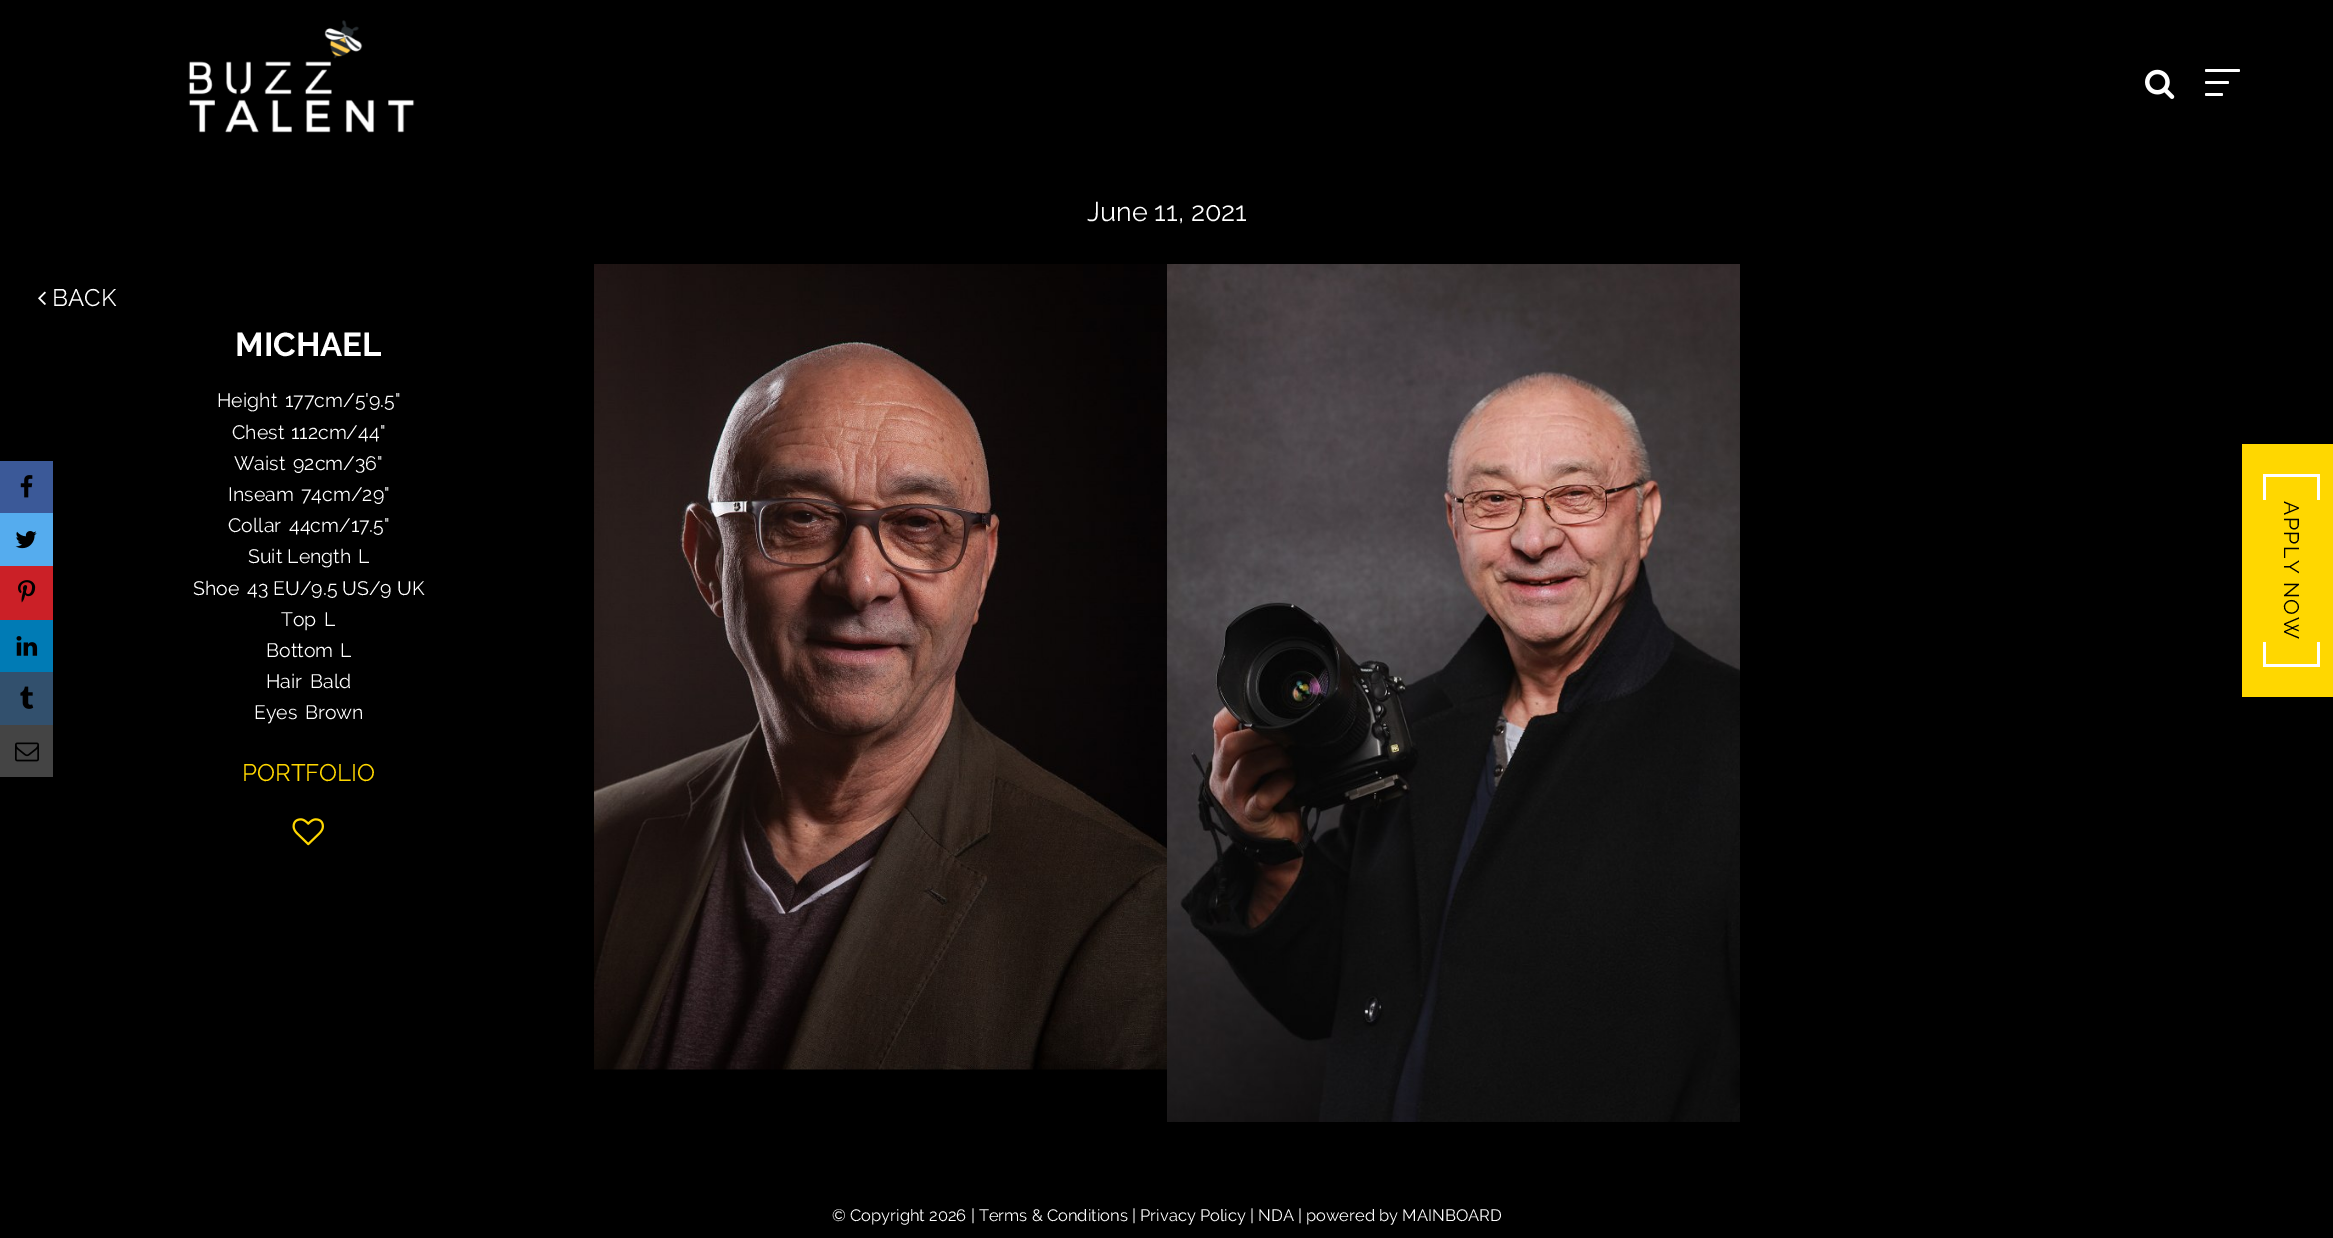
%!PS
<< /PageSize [2333 1238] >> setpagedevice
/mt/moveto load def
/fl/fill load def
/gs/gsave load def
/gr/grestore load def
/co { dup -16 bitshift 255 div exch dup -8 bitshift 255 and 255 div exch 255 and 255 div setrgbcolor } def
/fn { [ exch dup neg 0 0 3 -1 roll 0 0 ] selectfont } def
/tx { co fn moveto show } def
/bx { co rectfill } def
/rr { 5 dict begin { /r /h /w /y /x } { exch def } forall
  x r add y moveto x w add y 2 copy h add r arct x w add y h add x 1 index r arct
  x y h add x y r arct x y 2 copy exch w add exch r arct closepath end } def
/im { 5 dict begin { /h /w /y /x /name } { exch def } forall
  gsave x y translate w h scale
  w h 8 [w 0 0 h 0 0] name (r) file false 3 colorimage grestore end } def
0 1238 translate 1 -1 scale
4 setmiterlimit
0 0 2333 1238 16#000000 bx
(media/1.raw) 188 20 227 113 im
(media/2.raw) 2145 69 30 30 im
16#FFFFFF co
2205 69 35 3 1.5 rr fl
2205 81 24 3 1.5 rr fl
2205 93 18 3 1.5 rr fl
0 461 53 52 16#3B5998 bx
(media/3.raw) 20 475 13 23 im
0 513 53 53 16#55ACEE bx
(media/4.raw) 15 531 22 18 im
0 566 53 54 16#CB2027 bx
(media/5.raw) 18 580 18 23 im
0 620 53 52 16#007BB5 bx
(media/6.raw) 16 636 22 20 im
0 672 53 53 16#32506D bx
(media/7.raw) 20 686 14 23 im
0 725 53 52 16#444444 bx
(media/8.raw) 15 742 24 20 im
(media/9.raw) 38 291 8 14 im
(media/10.raw) 292 818 32 28 im
(media/11.raw) 594 264 573 806 im
(media/12.raw) 1167 264 573 858 im
2242 444 91 253 16#FFD700 bx
2263 642 3 25 16#FFFFFF bx
2263 474 3 26 16#FFFFFF bx
2317 642 3 25 16#FFFFFF bx
2317 474 3 26 16#FFFFFF bx
2263 664 57 3 16#FFFFFF bx
2263 474 57 3 16#FFFFFF bx
(June 11, 2021) 1087 221 /Raleway-Regular 27 16#FFFFFF tx
(BACK) 52 306 /Raleway-Regular 24 16#FFFFFF tx
(MICHAEL) 235 356 /Raleway-Bold 33 16#FFFFFF tx
(Height) 217 407 /Raleway-Regular 19.5 16#FFFFFF tx
(177cm/5'9.5") 285 407 /Raleway-Regular 19.5 16#FFFFFF tx
(Chest) 232 439 /Raleway-Regular 19.5 16#FFFFFF tx
(112cm/44") 291 439 /Raleway-Regular 19.5 16#FFFFFF tx
(Waist) 234 470 /Raleway-Regular 19.5 16#FFFFFF tx
(92cm/36") 293 470 /Raleway-Regular 19.5 16#FFFFFF tx
(Inseam) 228 501 /Raleway-Regular 19.5 16#FFFFFF tx
(74cm/29") 301 501 /Raleway-Regular 19.5 16#FFFFFF tx
(Collar) 228 532 /Raleway-Regular 19.5 16#FFFFFF tx
(44cm/17.5") 289 532 /Raleway-Regular 19.5 16#FFFFFF tx
(Suit Length) 248 563 /Raleway-Regular 19.5 16#FFFFFF tx
(L) 358 563 /Raleway-Regular 19.5 16#FFFFFF tx
(Shoe) 193 595 /Raleway-Regular 19.5 16#FFFFFF tx
(43 EU/9.5 US/9 UK) 247 595 /Raleway-Regular 19.5 16#FFFFFF tx
(Top) 281 626 /Raleway-Regular 19.5 16#FFFFFF tx
(L) 324 626 /Raleway-Regular 19.5 16#FFFFFF tx
(Bottom) 266 657 /Raleway-Regular 19.5 16#FFFFFF tx
(L) 340 657 /Raleway-Regular 19.5 16#FFFFFF tx
(Hair) 266 688 /Raleway-Regular 19.5 16#FFFFFF tx
(Bald) 310 688 /Raleway-Regular 19.5 16#FFFFFF tx
(Eyes) 254 719 /Raleway-Regular 19.5 16#FFFFFF tx
(Brown) 305 719 /Raleway-Regular 19.5 16#FFFFFF tx
(PORTFOLIO) 242 781 /Raleway-Regular 24 16#FFD700 tx
(© Copyright 2026 | Terms & Conditions | Privacy Policy | NDA | powered by MAINBOARD) 832 1221 /Raleway-Regular 16.5 16#FFFFFF tx
/Raleway-Regular 21 fn
16#000000 co
gs 2284 501 translate 90 rotate 0 0 mt 1.5 0 (APPLY NOW) ashow gr
showpage
